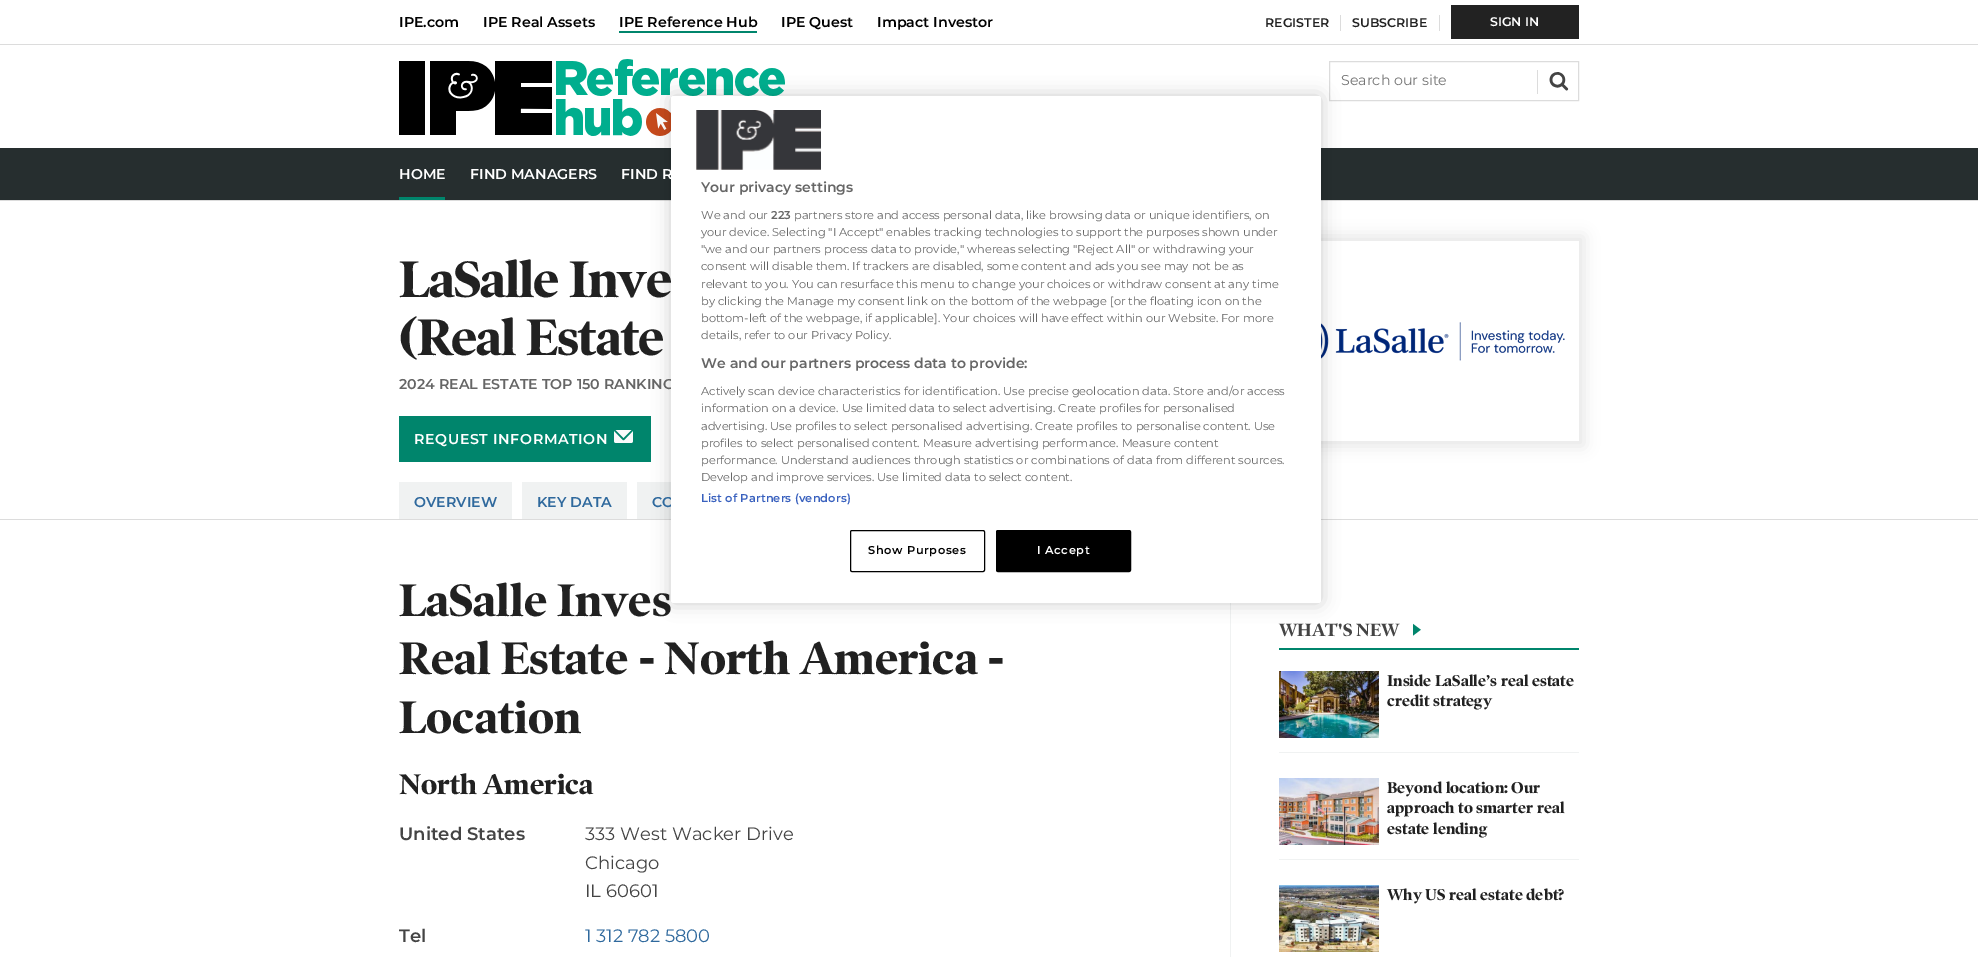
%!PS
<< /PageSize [1978 957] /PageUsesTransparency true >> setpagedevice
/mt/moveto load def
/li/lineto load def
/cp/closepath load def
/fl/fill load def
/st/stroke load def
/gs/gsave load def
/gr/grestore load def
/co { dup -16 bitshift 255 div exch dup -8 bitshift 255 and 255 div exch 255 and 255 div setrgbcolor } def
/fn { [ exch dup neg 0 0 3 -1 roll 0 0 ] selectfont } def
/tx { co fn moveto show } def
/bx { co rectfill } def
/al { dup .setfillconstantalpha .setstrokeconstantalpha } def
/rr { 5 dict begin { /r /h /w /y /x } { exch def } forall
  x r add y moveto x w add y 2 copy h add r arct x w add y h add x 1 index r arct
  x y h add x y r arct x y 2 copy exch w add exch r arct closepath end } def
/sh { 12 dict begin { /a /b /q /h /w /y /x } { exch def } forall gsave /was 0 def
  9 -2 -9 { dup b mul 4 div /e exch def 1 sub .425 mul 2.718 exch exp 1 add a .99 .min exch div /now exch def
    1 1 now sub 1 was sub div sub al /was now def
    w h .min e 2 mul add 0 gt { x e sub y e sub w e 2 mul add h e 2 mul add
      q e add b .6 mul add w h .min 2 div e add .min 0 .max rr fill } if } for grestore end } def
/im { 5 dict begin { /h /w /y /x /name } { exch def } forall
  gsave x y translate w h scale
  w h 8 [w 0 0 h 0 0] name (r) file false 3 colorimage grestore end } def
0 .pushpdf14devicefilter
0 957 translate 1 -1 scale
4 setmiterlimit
0 0 1978 957 16#FFFFFF bx
0 44 1978 1 16#DCDCDC bx
619 31 138 2 16#00856C bx
1340 15 1 16 16#DCDCDC bx
1439 15 1 16 16#DCDCDC bx
1451 5 128 34 16#222222 bx
1537 70 1 24 16#DCDCDC bx
1329.5 61.5 249 39 rectstroke
(media/1.raw) 1549 72 20 19 im
(media/2.raw) 399 59 386 77 im
0 148 1978 52 16#262E2F bx
399 197 46 3 16#00856C bx
0 200 1978 1 16#DCDCDC bx
399 416 252 46 16#00856C bx
(media/3.raw) 614 430 19 13 im
gs
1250 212 mt 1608 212 li 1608 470 li 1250 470 li cp 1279 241 mt 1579 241 li 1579 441 li 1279 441 li cp eoclip newpath
16#000000 co
1274 236 310 210 0 7.5 .1 sh
gr
(media/4.raw) 1321 322 244 39 im
399 482 113 37 16#F0F2F2 bx
522 482 105 37 16#F0F2F2 bx
637 482 34 37 16#F0F2F2 bx
0 519 1978 1 16#DCDCDC bx
1230 603 1 354 16#F0F2F2 bx
1279 648 300 2 16#00856C bx
(media/5.raw) 1413 623 8 13 im
1279 752 300 1 16#F0F2F2 bx
(media/6.raw) 1279 671 100 67 im
1279 859 300 1 16#F0F2F2 bx
(media/7.raw) 1279 778 100 67 im
(media/8.raw) 1279 885 100 67 im
16#000000 co
671 96 650 507 2.5 9 .2 sh
(IPE.com) 399 27 /Montserrat-SemiBold 14.25 16#000000 tx
(IPE Real Assets) 483 27 /Montserrat-SemiBold 14.25 16#000000 tx
(IPE Reference Hub) 619 27 /Montserrat-SemiBold 14.25 16#000000 tx
(IPE Quest) 781 27 /Montserrat-SemiBold 14.25 16#000000 tx
(Impact Investor) 877 27 /Montserrat-SemiBold 14.25 16#000000 tx
(REGISTER) 1265 27 /Montserrat-SemiBold 12.5 16#212121 tx
(SUBSCRIBE) 1352 27 /Montserrat-SemiBold 12.5 16#212121 tx
(SIGN IN) 1490 26 /Montserrat-SemiBold 12.5 16#FFFFFF tx
(Search our site) 1341 85 /Montserrat-Regular 14.25 16#757575 tx
(HOME) 399 179 /Montserrat-SemiBold 14.25 16#FFFFFF tx
(FIND MANAGERS) 470 179 /Montserrat-SemiBold 14.25 16#FFFFFF tx
(FIND R) 621 179 /Montserrat-SemiBold 14.25 16#FFFFFF tx
/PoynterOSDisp-Bold 52 fn
16#212121 co
399 297 mt -1 0 (LaSalle Inve) ashow
399 355 mt -1 0 (\(Real Estate) ashow
(2024 REAL ESTATE TOP 150 RANKING) 399 389 /Montserrat-SemiBold 14.25 16#666666 tx
16#FFFFFF co
414 444 mt .6 0 (REQUEST INFORMATION) ashow
(OVERVIEW) 414 507 /Montserrat-SemiBold 14.25 16#2F699D tx
(KEY DATA) 537 507 /Montserrat-SemiBold 14.25 16#2F699D tx
(CO) 652 507 /Montserrat-SemiBold 14.25 16#2F699D tx
(LaSalle Inves) 399 616 /PoynterOSDisp-Bold 46.25 16#212121 tx
(Real Estate - North America -) 399 674 /PoynterOSDisp-Bold 46.25 16#212121 tx
(Location) 399 733 /PoynterOSDisp-Bold 46.25 16#212121 tx
(North America) 399 794 /PoynterOSDisp-Bold 28.75 16#212121 tx
(United States) 399 840 /Montserrat-SemiBold 18 16#444444 tx
(333 West Wacker Drive) 585 840 /Montserrat-Regular 18 16#444444 tx
(Chicago) 585 869 /Montserrat-Regular 18 16#444444 tx
(IL 60601) 585 897 /Montserrat-Regular 18 16#444444 tx
(Tel) 399 942 /Montserrat-SemiBold 18 16#444444 tx
(1 312 782 5800) 585 942 /Montserrat-Regular 18 16#2F699D tx
(WHAT'S NEW) 1279 636 /PoynterOSDisp-Bold 18 16#444444 tx
(Inside LaSalle’s real estate) 1387 686 /PoynterOSDisp-Bold 16 16#212121 tx
(credit strategy) 1387 706 /PoynterOSDisp-Bold 16 16#212121 tx
(Beyond location: Our) 1387 793 /PoynterOSDisp-Bold 16 16#212121 tx
(approach to smarter real) 1387 813 /PoynterOSDisp-Bold 16 16#212121 tx
(estate lending) 1387 834 /PoynterOSDisp-Bold 16 16#212121 tx
(Why US real estate debt?) 1387 900 /PoynterOSDisp-Bold 16 16#212121 tx
16#FFFFFF co
671 96 650 507 2.5 rr fl
(media/9.raw) 696 110 125 60 im
(Your privacy settings) 701 192 /Montserrat-SemiBold 14 16#666666 tx
(We and our) 701 219 /Montserrat-Regular 11.38 16#666666 tx
(223) 771 219 /Montserrat-SemiBold 11.38 16#666666 tx
(partners store and access personal data, like browsing data or unique identifiers, on) 794 219 /Montserrat-Regular 11.38 16#666666 tx
(your device. Selecting "I Accept" enables tracking technologies to support the purposes shown under) 701 236 /Montserrat-Regular 11.38 16#666666 tx
("we and our partners process data to provide," whereas selecting "Reject All" or withdrawing your) 701 253 /Montserrat-Regular 11.38 16#666666 tx
(consent will disable them. If trackers are disabled, some content and ads you see may not be as) 701 270 /Montserrat-Regular 11.38 16#666666 tx
(relevant to you. You can resurface this menu to change your choices or withdraw consent at any time) 701 288 /Montserrat-Regular 11.38 16#666666 tx
(by clicking the Manage my consent link on the bottom of the webpage [or the floating icon on the) 701 305 /Montserrat-Regular 11.38 16#666666 tx
(bottom-left of the webpage, if applicable]. Your choices will have effect within our Website. For more) 701 322 /Montserrat-Regular 11.38 16#666666 tx
(details, refer to our Privacy Policy.) 701 339 /Montserrat-Regular 11.38 16#666666 tx
(We and our partners process data to provide:) 701 368 /Montserrat-SemiBold 14 16#666666 tx
(Actively scan device characteristics for identification. Use precise geolocation data. Store and/or access) 701 395 /Montserrat-Regular 11.38 16#666666 tx
(information on a device. Use limited data to select advertising. Create profiles for personalised) 701 412 /Montserrat-Regular 11.38 16#666666 tx
(advertising. Use profiles to select personalised advertising. Create profiles to personalise content. Use) 701 430 /Montserrat-Regular 11.38 16#666666 tx
(profiles to select personalised content. Measure advertising performance. Measure content) 701 447 /Montserrat-Regular 11.38 16#666666 tx
(performance. Understand audiences through statistics or combinations of data from different sources.) 701 464 /Montserrat-Regular 11.38 16#666666 tx
(Develop and improve services. Use limited data to select content.) 701 481 /Montserrat-Regular 11.38 16#666666 tx
/Montserrat-SemiBold 11.38 fn
16#3860BE co
701 502 mt .1 0 (List of Partners \(vendors\)) ashow
16#000000 co
850.5 530.5 134 41 1.5 rr st
868 554 mt .6 0 (Show Purposes) ashow
996.5 530.5 134 41 1.5 rr gs fl gr
st
16#FFFFFF co
1037 554 mt .6 0 (I Accept) ashow
.poppdf14devicefilter showpage
